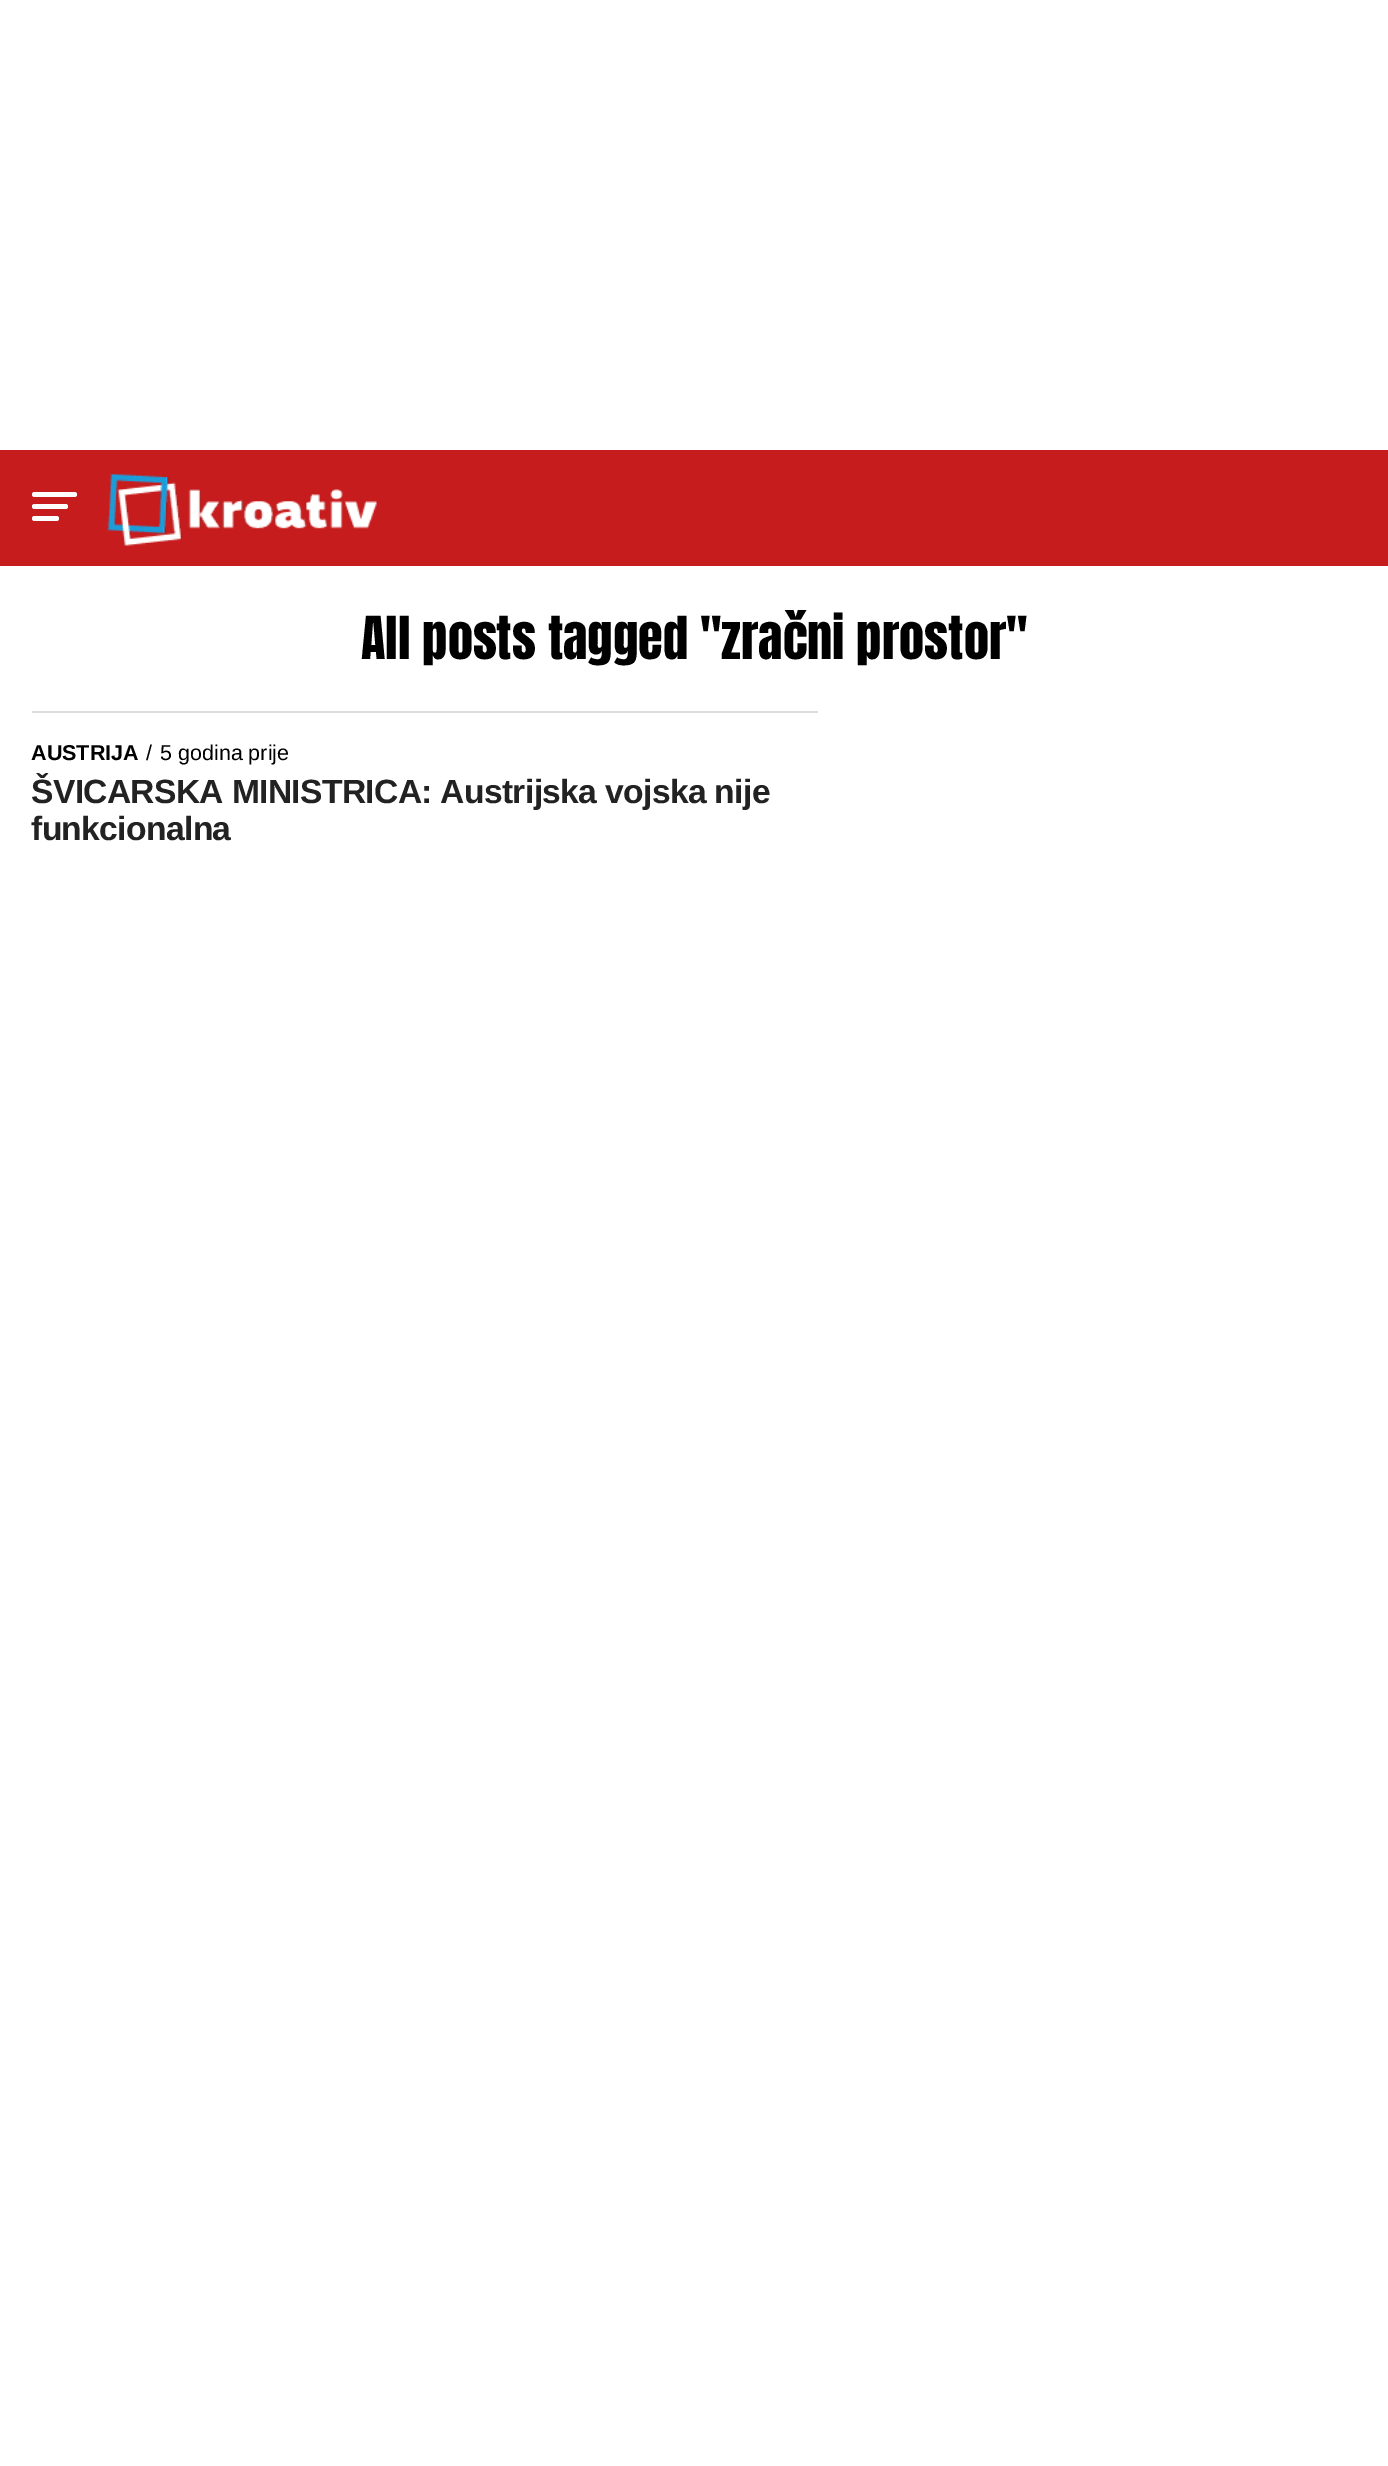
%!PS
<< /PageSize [1388 2466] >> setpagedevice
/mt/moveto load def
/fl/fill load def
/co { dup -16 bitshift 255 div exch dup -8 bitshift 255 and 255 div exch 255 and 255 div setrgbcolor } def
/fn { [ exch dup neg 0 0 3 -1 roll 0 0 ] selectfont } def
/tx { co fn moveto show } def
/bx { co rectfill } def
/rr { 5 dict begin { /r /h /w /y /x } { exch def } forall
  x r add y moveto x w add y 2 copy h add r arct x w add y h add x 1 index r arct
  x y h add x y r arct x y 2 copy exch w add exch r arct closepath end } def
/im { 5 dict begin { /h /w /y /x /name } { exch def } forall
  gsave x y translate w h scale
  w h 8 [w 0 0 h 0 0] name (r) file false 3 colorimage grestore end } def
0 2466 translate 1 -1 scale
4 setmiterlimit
0 0 1388 2466 16#FFFFFF bx
0 450 1388 116 16#C71C1D bx
16#FFFFFF co
32 492 45 5 2.5 rr fl
32 504 36 5 2.5 rr fl
32 516 27 5 2.5 rr fl
(media/1.raw) 107 474 270 72 im
32 711 786 2 16#DDDDDD bx
(All posts tagged "zračni prostor") 361 659 /Anton-Regular 50.4 16#000000 tx
(AUSTRIJA) 31 760 /LiberationSans-Bold 21.5 16#000000 tx
(/) 146 760 /LiberationSans-Regular 21.5 16#000000 tx
(5 godina prije) 160 760 /LiberationSans-Regular 21.5 16#000000 tx
/LiberationSans-Bold 33.6 fn
16#222222 co
31 803 mt -.65 0 (ŠVICARSKA MINISTRICA: Austrijska vojska nije) ashow
31 840 mt -.65 0 (funkcionalna) ashow
showpage
